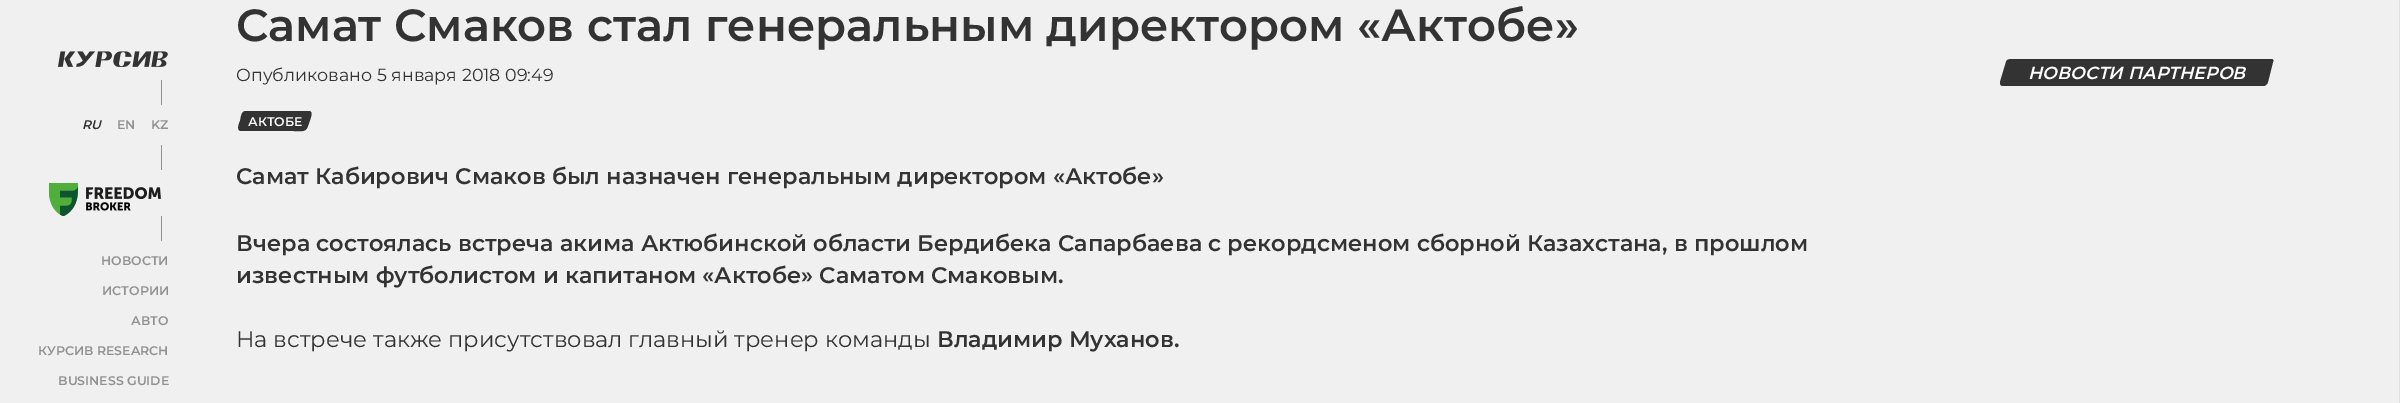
%!PS
<< /PageSize [2400 403] >> setpagedevice
/mt/moveto load def
/li/lineto load def
/ct/curveto load def
/cp/closepath load def
/fl/fill load def
/co { dup -16 bitshift 255 div exch dup -8 bitshift 255 and 255 div exch 255 and 255 div setrgbcolor } def
/fn { [ exch dup neg 0 0 3 -1 roll 0 0 ] selectfont } def
/tx { co fn moveto show } def
/bx { co rectfill } def
/im { 5 dict begin { /h /w /y /x /name } { exch def } forall
  gsave x y translate w h scale
  w h 8 [w 0 0 h 0 0] name (r) file false 3 colorimage grestore end } def
0 403 translate 1 -1 scale
4 setmiterlimit
0 0 2400 403 16#F0F0F0 bx
(media/1.raw) 58 51 110 16 im
161 80 1 25 16#919191 bx
161 145 1 25 16#919191 bx
(media/2.raw) 49 183 112 33 im
161 216 1 25 16#919191 bx
2399 0 1 403 16#DFDFDF bx
16#333333 co
246 111 mt 309 111 li 314 111 310 120 309 123 ct 306 133 304 131 293 131 ct 241 131 li 236 131 239 123 240 121 ct 241 117 241 111 246 111 ct cp fl
2011 59 mt 2271 59 li 2273 59 2274 60 2273 62 ct 2268 82 li 2267 85 2265 86 2263 86 ct 2003 86 li 2001 86 2000 85 2000 82 ct 2006 62 li 2006 60 2009 59 2011 59 ct cp fl
(RU) 82 129 /Montserrat-SemiBoldItalic 12.5 16#333333 tx
(EN) 117 129 /Montserrat-SemiBold 12.5 16#919191 tx
(KZ) 151 129 /Montserrat-SemiBold 12.5 16#919191 tx
(НОВОСТИ) 101 265 /Montserrat-SemiBold 12.5 16#919191 tx
(ИСТОРИИ) 102 295 /Montserrat-SemiBold 12.5 16#919191 tx
(АВТО) 131 325 /Montserrat-SemiBold 12.5 16#919191 tx
(КУРСИВ RESEARCH) 38 355 /Montserrat-SemiBold 12.5 16#919191 tx
(BUSINESS GUIDE) 58 385 /Montserrat-SemiBold 12.5 16#919191 tx
(Самат Смаков стал генеральным директором «Актобе») 236 41 /Montserrat-SemiBold 45 16#333333 tx
(Опубликовано 5 января 2018 09:49) 236 81 /Montserrat-Regular 17.5 16#333333 tx
(АКТОБЕ) 248 126 /Montserrat-SemiBold 12.5 16#FFFFFF tx
(Самат Кабирович Смаков был назначен генеральным директором «Актобе») 236 184 /Montserrat-SemiBold 22.5 16#333333 tx
(НОВОСТИ ПАРТНЕРОВ) 2028 79 /Montserrat-SemiBoldItalic 17.5 16#FFFFFF tx
(Вчера состоялась встреча акима Актюбинской области Бердибека Сапарбаева с рекордсменом сборной Казахстана, в прошлом) 236 251 /Montserrat-SemiBold 22.5 16#333333 tx
(известным футболистом и капитаном «Актобе» Саматом Смаковым.) 236 283 /Montserrat-SemiBold 22.5 16#333333 tx
(На встрече также присутствовал главный тренер команды) 236 347 /Montserrat-Regular 22.5 16#333333 tx
(Владимир Муханов.) 937 347 /Montserrat-SemiBold 22.5 16#333333 tx
showpage
